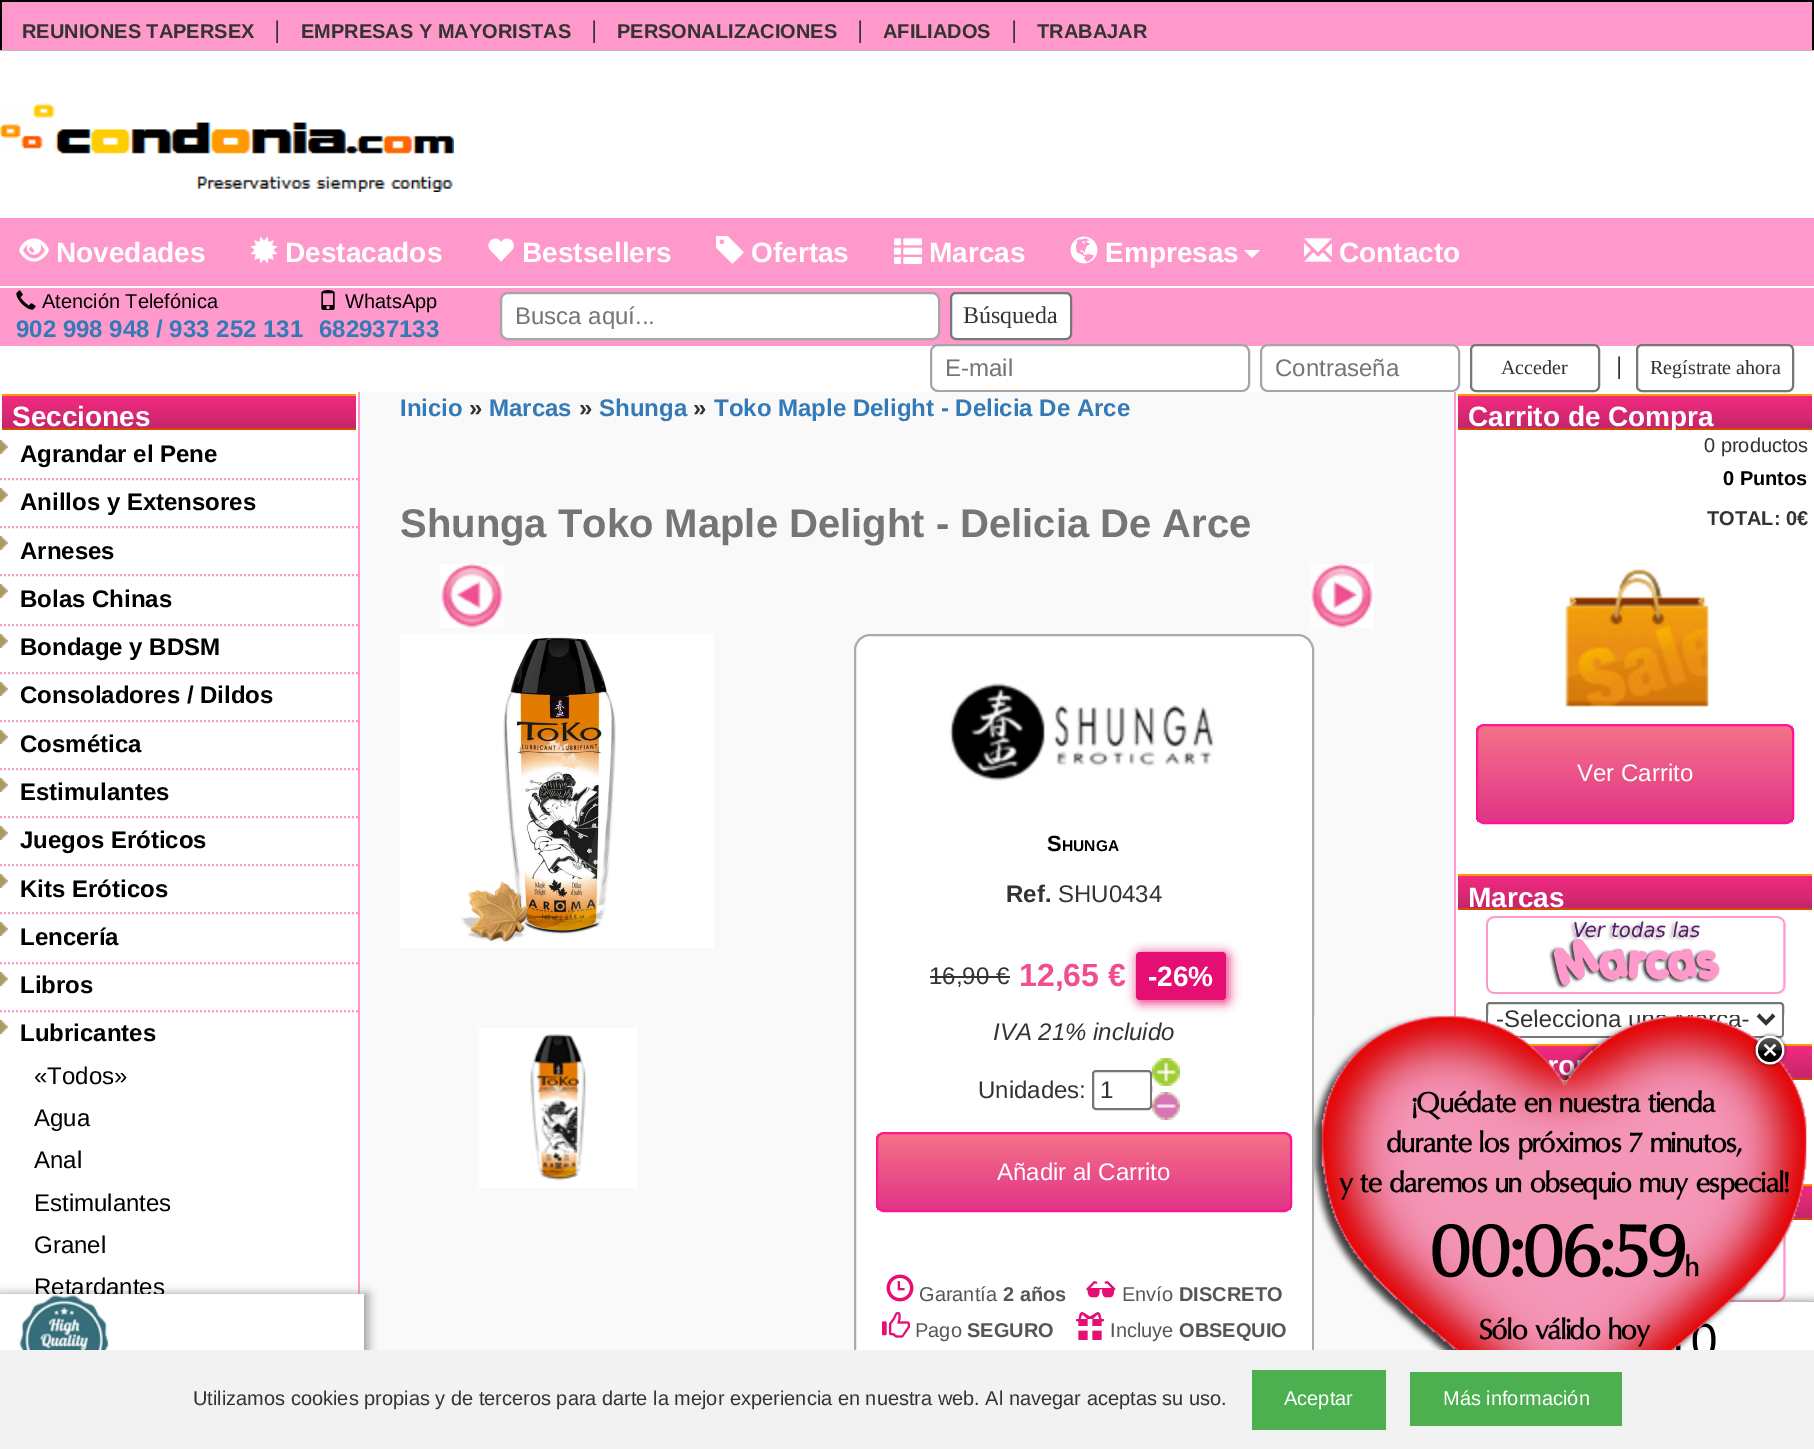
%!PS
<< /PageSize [1814 1449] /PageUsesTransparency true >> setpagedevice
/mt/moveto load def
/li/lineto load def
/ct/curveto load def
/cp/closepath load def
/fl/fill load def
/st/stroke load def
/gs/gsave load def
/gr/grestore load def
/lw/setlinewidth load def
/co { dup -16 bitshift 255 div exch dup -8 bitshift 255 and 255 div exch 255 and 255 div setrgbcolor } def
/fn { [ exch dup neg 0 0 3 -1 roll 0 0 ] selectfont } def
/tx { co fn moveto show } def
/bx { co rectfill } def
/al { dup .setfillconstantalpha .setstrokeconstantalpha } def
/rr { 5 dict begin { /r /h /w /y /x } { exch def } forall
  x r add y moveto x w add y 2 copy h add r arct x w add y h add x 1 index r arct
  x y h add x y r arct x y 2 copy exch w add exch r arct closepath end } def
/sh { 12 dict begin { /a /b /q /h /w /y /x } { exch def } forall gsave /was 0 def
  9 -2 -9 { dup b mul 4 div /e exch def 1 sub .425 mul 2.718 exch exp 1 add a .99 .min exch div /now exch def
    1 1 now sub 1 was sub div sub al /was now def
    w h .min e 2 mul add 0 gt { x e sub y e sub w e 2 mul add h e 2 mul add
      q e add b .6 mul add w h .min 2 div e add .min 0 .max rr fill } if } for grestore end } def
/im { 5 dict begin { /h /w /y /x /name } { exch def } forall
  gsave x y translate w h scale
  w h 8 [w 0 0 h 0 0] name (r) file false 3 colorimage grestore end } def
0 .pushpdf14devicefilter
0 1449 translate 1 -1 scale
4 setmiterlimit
0 0 1814 1449 16#FFFFFF bx
16#000000 co
2 lw
1 1 1812 48 rectstroke
2 2 1810 48 16#FF99CC bx
(media/1.raw) 0 103 454 89 im
0 218 1814 68 16#FF99CC bx
(media/2.raw) 19 238 30 24 im
(media/3.raw) 250 236 28 28 im
(media/4.raw) 488 238 26 24 im
(media/5.raw) 716 236 28 28 im
(media/6.raw) 894 238 28 26 im
(media/7.raw) 1070 236 28 28 im
16#FFFFFF co
1244 250 mt 1260 250 li 1252 258 li cp fl
(media/8.raw) 1304 238 28 24 im
0 288 1814 58 16#FF99CC bx
(media/9.raw) 16 290 20 20 im
(media/10.raw) 321 290 14 20 im
16#FFFFFF co
501 293 438 46 7 rr gs fl gr
16#A6A6A6 co
st
16#FFFFFF co
951 293 120 46 5 rr gs fl gr
16#777777 co
st
16#FFFFFF co
931 345 318 46 7 rr gs fl gr
16#A6A6A6 co
st
16#FFFFFF co
1261 345 198 46 7 rr gs fl gr
16#A6A6A6 co
st
16#FFFFFF co
1471 345 128 46 5 rr gs fl gr
16#777777 co
st
16#FFFFFF co
1637 345 156 46 5 rr gs fl gr
16#777777 co
st
358 392 2 902 16#FF99CC bx
(media/11.raw) 2 396 354 32 im
2 394 354 2 16#FF9900 bx
2 428 354 2 16#D54B03 bx
(media/12.raw) 0 440 8 14 im
16#FF99CC co
[2 2] 0 setdash
0 479 mt 358 479 li st
(media/12.raw) 0 488 8 14 im
0 527 mt 358 527 li st
(media/12.raw) 0 536 8 14 im
0 575 mt 358 575 li st
(media/12.raw) 0 584 8 14 im
0 625 mt 358 625 li st
(media/12.raw) 0 634 8 14 im
0 673 mt 358 673 li st
(media/12.raw) 0 682 8 14 im
0 721 mt 358 721 li st
(media/12.raw) 0 730 8 14 im
0 769 mt 358 769 li st
(media/12.raw) 0 778 8 14 im
0 817 mt 358 817 li st
(media/12.raw) 0 826 8 14 im
0 865 mt 358 865 li st
(media/12.raw) 0 874 8 14 im
0 913 mt 358 913 li st
(media/12.raw) 0 922 8 14 im
0 963 mt 358 963 li st
(media/12.raw) 0 972 8 14 im
0 1011 mt 358 1011 li st
(media/12.raw) 0 1020 8 14 im
360 392 1094 958 16#F9F9F9 bx
(media/13.raw) 440 564 64 64 im
(media/14.raw) 1310 564 64 64 im
(media/15.raw) 400 634 314 314 im
(media/16.raw) 478 1028 160 160 im
16#FFFFFF co
855 635 458 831 15 rr gs fl gr
16#AAAAAA co
[] 0 setdash
st
(media/17.raw) 949 683 266 98 im
930 976 80 2 16#333333 bx
16#EE4F91 co
1136 952 94 52 6 5 1 sh
16#E50F74 co
1136 952 90 48 4 rr fl
16#767676 co
1093 1071 58 38 3 rr st
(media/18.raw) 1152 1058 28 28 im
(media/19.raw) 1152 1092 28 28 im
gs
876 1132 416 80 8 rr clip newpath
gs 876 1134 mt 1292 1134 li 1292 1210 li 876 1210 li cp clip newpath
<< /ShadingType 2 /ColorSpace /DeviceRGB /Coords [1084 1134 1084 1210] /Extend [true true] /Function << /FunctionType 2 /Domain [0 1] /C0 [.957 .447 .529] /C1 [.886 .204 .529] /N 1 >> >> shfill gr
gr
16#FF1493 co
877 1133 414 78 7 rr st
(media/20.raw) 886 1274 28 28 im
(media/21.raw) 1086 1281 30 17 im
(media/22.raw) 882 1312 28 26 im
(media/23.raw) 1076 1312 28 28 im
1454 392 2 958 16#FF99CC bx
(media/11.raw) 1458 396 354 32 im
1458 394 354 2 16#FF9900 bx
1458 428 354 2 16#D54B03 bx
(media/24.raw) 1565 568 144 139 im
gs
1476 724 318 100 8 rr clip newpath
gs 1476 726 mt 1794 726 li 1794 822 li 1476 822 li cp clip newpath
<< /ShadingType 2 /ColorSpace /DeviceRGB /Coords [1635 726 1635 822] /Extend [true true] /Function << /FunctionType 2 /Domain [0 1] /C0 [.957 .447 .529] /C1 [.886 .204 .529] /N 1 >> >> shfill gr
gr
16#FF1493 co
1477 725 316 98 7 rr st
(media/11.raw) 1458 876 354 32 im
1458 874 354 2 16#FF9900 bx
1458 908 354 2 16#D54B03 bx
(media/25.raw) 1486 916 300 78 im
16#767676 co
1487 1003 296 34 3 rr st
16#333333 co
4 lw
1758 1015 mt 1766 1023 li 1774 1015 li st
(media/26.raw) 1529 1046 283 32 im
1527 1044 285 2 16#FF9900 bx
1560 1078 252 2 16#D54B03 bx
(media/27.raw) 1793 1186 19 32 im
1802 1184 10 2 16#FF9900 bx
1791 1218 21 2 16#D54B03 bx
(media/28.raw) 1729 1233 57 69 im
gs
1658 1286 mt 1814 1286 li 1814 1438 li 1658 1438 li cp 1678 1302 mt 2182 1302 li 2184 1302 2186 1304 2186 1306 ct 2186 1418 li 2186 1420 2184 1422 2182 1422 ct 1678 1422 li 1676 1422 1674 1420 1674 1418 ct 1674 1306 li 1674 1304 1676 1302 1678 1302 ct cp eoclip newpath
16#808080 co
1674 1302 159 120 4 5 1 sh
gr
16#999999 co
0 1294 368 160 0 5 1 sh
(REUNIONES TAPERSEX) 22 38 /LiberationSans-Bold 20 16#333333 tx
(|) 274 38 /LiberationSans-Regular 24 16#333333 tx
(EMPRESAS Y MAYORISTAS) 301 38 /LiberationSans-Bold 20 16#333333 tx
(|) 591 38 /LiberationSans-Regular 24 16#333333 tx
(PERSONALIZACIONES) 617 38 /LiberationSans-Bold 20 16#333333 tx
(|) 857 38 /LiberationSans-Regular 24 16#333333 tx
(AFILIADOS) 883 38 /LiberationSans-Bold 20 16#333333 tx
(|) 1011 38 /LiberationSans-Regular 24 16#333333 tx
(TRABAJAR) 1037 38 /LiberationSans-Bold 20 16#333333 tx
(Novedades) 56 262 /LiberationSans-Bold 28 16#FFFFFF tx
(Destacados) 285 262 /LiberationSans-Bold 28 16#FFFFFF tx
(Bestsellers) 522 262 /LiberationSans-Bold 28 16#FFFFFF tx
(Ofertas) 751 262 /LiberationSans-Bold 28 16#FFFFFF tx
(Marcas) 929 262 /LiberationSans-Bold 28 16#FFFFFF tx
(Empresas) 1105 262 /LiberationSans-Bold 28 16#FFFFFF tx
(Contacto) 1339 262 /LiberationSans-Bold 28 16#FFFFFF tx
(Atención Telefónica) 42 308 /LiberationSans-Regular 20 16#000000 tx
(902 998 948 / 933 252 131) 16 337 /LiberationSans-Bold 24 16#337AB7 tx
(WhatsApp) 345 308 /LiberationSans-Regular 20 16#000000 tx
(682937133) 319 337 /LiberationSans-Bold 24 16#337AB7 tx
(Busca aquí...) 515 324 /LiberationSans-Regular 24 16#757575 tx
(Búsqueda) 963 323 /LiberationSerif-Regular 24 16#333333 tx
(E-mail) 945 376 /LiberationSans-Regular 24 16#757575 tx
(Contraseña) 1275 376 /LiberationSans-Regular 24 16#757575 tx
(Acceder) 1501 374 /LiberationSerif-Regular 20 16#333333 tx
(|) 1616 374 /LiberationSans-Regular 24 16#333333 tx
(Regístrate ahora) 1650 374 /LiberationSerif-Regular 20 16#333333 tx
(Secciones) 12 426 /LiberationSans-Bold 28 16#FFFFFF tx
(Agrandar el Pene) 20 462 /LiberationSans-Bold 24 16#000000 tx
(Anillos y Extensores) 20 510 /LiberationSans-Bold 24 16#000000 tx
(Arneses) 20 559 /LiberationSans-Bold 24 16#000000 tx
(Bolas Chinas) 20 607 /LiberationSans-Bold 24 16#000000 tx
(Bondage y BDSM) 20 655 /LiberationSans-Bold 24 16#000000 tx
(Consoladores / Dildos) 20 703 /LiberationSans-Bold 24 16#000000 tx
(Cosmética) 20 752 /LiberationSans-Bold 24 16#000000 tx
(Estimulantes) 20 800 /LiberationSans-Bold 24 16#000000 tx
(Juegos Eróticos) 20 848 /LiberationSans-Bold 24 16#000000 tx
(Kits Eróticos) 20 897 /LiberationSans-Bold 24 16#000000 tx
(Lencería) 20 945 /LiberationSans-Bold 24 16#000000 tx
(Libros) 20 993 /LiberationSans-Bold 24 16#000000 tx
(Lubricantes) 20 1041 /LiberationSans-Bold 24 16#000000 tx
(«Todos») 34 1084 /LiberationSans-Regular 24 16#000000 tx
(Agua) 34 1126 /LiberationSans-Regular 24 16#000000 tx
(Anal) 34 1168 /LiberationSans-Regular 24 16#000000 tx
(Estimulantes) 34 1211 /LiberationSans-Regular 24 16#000000 tx
(Granel) 34 1253 /LiberationSans-Regular 24 16#000000 tx
(Retardantes) 34 1295 /LiberationSans-Regular 24 16#000000 tx
(Inicio) 400 416 /LiberationSans-Bold 24 16#337AB7 tx
(») 469 416 /LiberationSans-Bold 24 16#333333 tx
(Marcas) 489 416 /LiberationSans-Bold 24 16#337AB7 tx
(») 579 416 /LiberationSans-Bold 24 16#333333 tx
(Shunga) 599 416 /LiberationSans-Bold 24 16#337AB7 tx
(») 693 416 /LiberationSans-Bold 24 16#333333 tx
(Toko Maple Delight - Delicia De Arce) 714 416 /LiberationSans-Bold 24 16#337AB7 tx
(Shunga Toko Maple Delight - Delicia De Arce) 400 537 /LiberationSans-Bold 40 16#757575 tx
(S) 1047 851 /LiberationSans-Bold 22 16#000000 tx
(HUNGA) 1062 851 /LiberationSans-Bold 15.5 16#000000 tx
(Ref.) 1006 902 /LiberationSans-Bold 24 16#333333 tx
(SHU0434) 1058 902 /LiberationSans-Regular 24 16#333333 tx
(16,90 €) 929 984 /LiberationSans-Regular 24 16#333333 tx
(12,65 €) 1019 986 /LiberationSans-Bold 32 16#EE4F91 tx
(-26%) 1148 986 /LiberationSans-Bold 28 16#FFFFFF tx
(IVA 21% incluido) 993 1040 /LiberationSans-Italic 24 16#333333 tx
(Unidades:) 978 1098 /LiberationSans-Regular 24 16#333333 tx
(1) 1100 1098 /LiberationSans-Regular 24 16#333333 tx
(Añadir al Carrito) 997 1180 /LiberationSans-Regular 24 16#FFFFFF tx
(Garantía) 919 1301 /LiberationSans-Regular 20 16#565656 tx
(2 años) 1003 1301 /LiberationSans-Bold 20 16#565656 tx
(Envío) 1122 1301 /LiberationSans-Regular 20 16#565656 tx
(DISCRETO) 1179 1301 /LiberationSans-Bold 20 16#565656 tx
(Pago) 915 1337 /LiberationSans-Regular 20 16#565656 tx
(SEGURO) 967 1337 /LiberationSans-Bold 20 16#565656 tx
(Incluye) 1110 1337 /LiberationSans-Regular 20 16#565656 tx
(OBSEQUIO) 1179 1337 /LiberationSans-Bold 20 16#565656 tx
(Carrito de Compra) 1468 426 /LiberationSans-Bold 28 16#FFFFFF tx
(0 productos) 1704 452 /LiberationSans-Regular 20 16#333333 tx
(0 Puntos) 1723 485 /LiberationSans-Bold 20 16#000000 tx
(TOTAL: 0€) 1707 525 /LiberationSans-Bold 20 16#333333 tx
(Ver Carrito) 1577 781 /LiberationSans-Regular 24 16#FFFFFF tx
(Marcas) 1468 907 /LiberationSans-Bold 28 16#FFFFFF tx
(-Selecciona) 1496 1027 /LiberationSans-Regular 24 16#333333 tx
(-) 1741 1027 /LiberationSans-Regular 24 16#333333 tx
(o) 1558 1075 /LiberationSans-Bold 28 16#FFFFFF tx
(0) 1691 1357 /LiberationSans-Regular 48 16#000000 tx
0 1350 1814 99 16#F2F2F2 bx
(Utilizamos cookies propias y de terceros para darte la mejor experiencia en nuestra web. Al navegar aceptas su uso.) 193 1405 /LiberationSans-Regular 20 16#333333 tx
1252 1370 134 60 16#4CAF50 bx
(Aceptar) 1284 1405 /LiberationSans-Regular 20 16#FFFFFF tx
1410 1372 212 54 16#4CAF50 bx
(Más información) 1443 1405 /LiberationSans-Regular 20 16#FFFFFF tx
0 1294 364 56 16#FFFFFF bx
(media/29.raw) 19 1295 90 55 im
(media/30.raw) 1314 1015 493 335 im
(media/31.raw) 1752 1032 36 36 im
(¡Quédate en nuestra tienda) 1412 1112 /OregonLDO-Bold 28 16#000000 tx
(durante los próximos 7 minutos,) 1387 1152 /OregonLDO-Bold 28 16#000000 tx
(y te daremos un obsequio muy especial!) 1339 1192 /OregonLDO-Bold 28 16#000000 tx
(00:06:59) 1430 1276 /OregonLDO-Bold 74.5 16#000000 tx
(h) 1685 1276 /OregonLDO-Bold 28 16#000000 tx
(Sólo válido hoy) 1479 1339 /OregonLDO-Bold 28 16#000000 tx
.poppdf14devicefilter showpage
